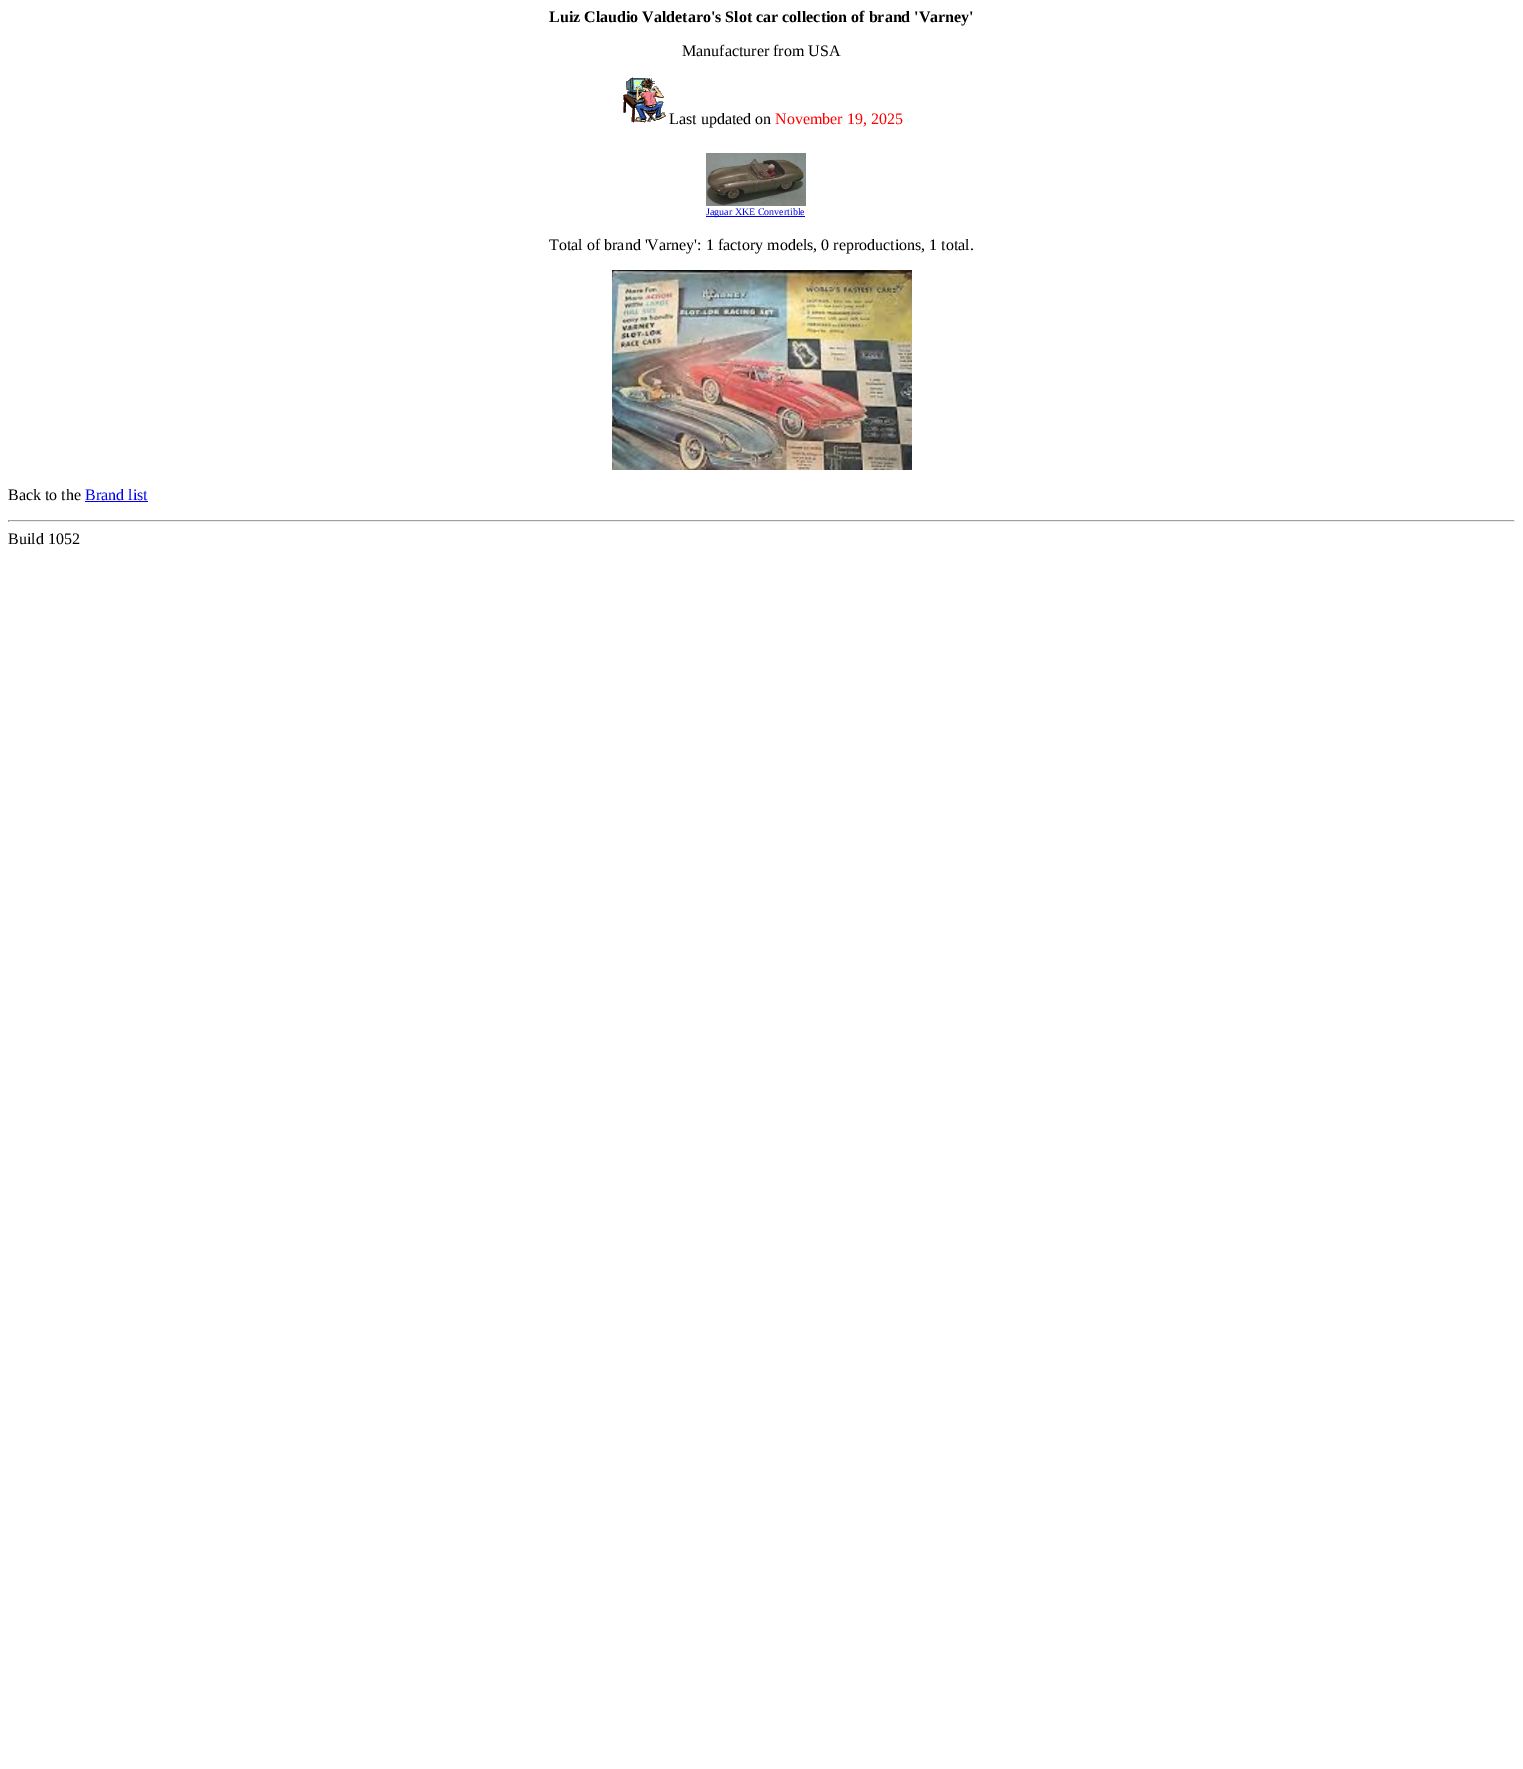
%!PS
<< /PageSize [1523 1769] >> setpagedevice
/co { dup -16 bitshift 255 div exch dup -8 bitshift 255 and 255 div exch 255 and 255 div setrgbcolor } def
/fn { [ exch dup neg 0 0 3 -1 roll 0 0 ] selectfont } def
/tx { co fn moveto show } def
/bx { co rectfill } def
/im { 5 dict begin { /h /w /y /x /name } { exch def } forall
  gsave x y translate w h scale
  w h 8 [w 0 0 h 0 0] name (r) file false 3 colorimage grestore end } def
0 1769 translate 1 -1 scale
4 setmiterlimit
0 0 1523 1769 16#FFFFFF bx
(media/1.raw) 623 77 43 46 im
(media/2.raw) 706 153 100 53 im
706 216 99 1 16#0000EE bx
(media/3.raw) 612 270 300 200 im
85 501 63 1 16#0000EE bx
8 520 1507 1 16#9F9F9F bx
1514 520 1 2 16#EEEEEE bx
8 521 1507 1 16#EEEEEE bx
8 520 1 2 16#9F9F9F bx
(Luiz Claudio Valdetaro's Slot car collection of brand 'Varney') 549 22 /LiberationSerif-Bold 16 16#000000 tx
(Manufacturer from USA) 682 56 /LiberationSerif-Regular 16 16#000000 tx
(Last updated on) 669 124 /LiberationSerif-Regular 16 16#000000 tx
(November 19, 2025) 775 124 /LiberationSerif-Regular 16 16#FF0000 tx
(Jaguar XKE Convertible) 706 215 /LiberationSerif-Regular 10 16#0000EE tx
(Total of brand 'Varney': 1 factory models, 0 reproductions, 1 total.) 549 250 /LiberationSerif-Regular 16 16#000000 tx
(Back to the) 8 500 /LiberationSerif-Regular 16 16#000000 tx
(Brand list) 85 500 /LiberationSerif-Regular 16 16#0000EE tx
(Build 1052) 8 544 /LiberationSerif-Regular 16 16#000000 tx
showpage
